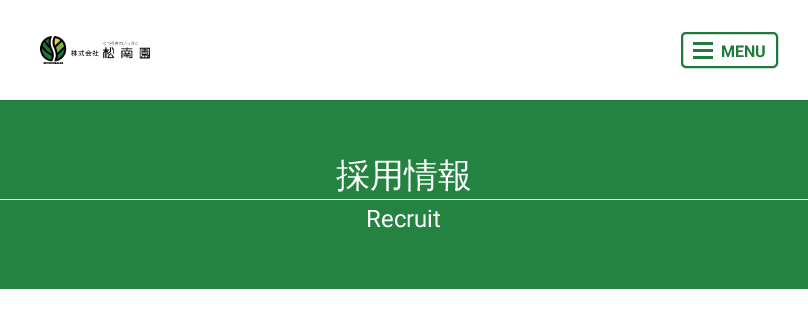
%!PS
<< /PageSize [808 318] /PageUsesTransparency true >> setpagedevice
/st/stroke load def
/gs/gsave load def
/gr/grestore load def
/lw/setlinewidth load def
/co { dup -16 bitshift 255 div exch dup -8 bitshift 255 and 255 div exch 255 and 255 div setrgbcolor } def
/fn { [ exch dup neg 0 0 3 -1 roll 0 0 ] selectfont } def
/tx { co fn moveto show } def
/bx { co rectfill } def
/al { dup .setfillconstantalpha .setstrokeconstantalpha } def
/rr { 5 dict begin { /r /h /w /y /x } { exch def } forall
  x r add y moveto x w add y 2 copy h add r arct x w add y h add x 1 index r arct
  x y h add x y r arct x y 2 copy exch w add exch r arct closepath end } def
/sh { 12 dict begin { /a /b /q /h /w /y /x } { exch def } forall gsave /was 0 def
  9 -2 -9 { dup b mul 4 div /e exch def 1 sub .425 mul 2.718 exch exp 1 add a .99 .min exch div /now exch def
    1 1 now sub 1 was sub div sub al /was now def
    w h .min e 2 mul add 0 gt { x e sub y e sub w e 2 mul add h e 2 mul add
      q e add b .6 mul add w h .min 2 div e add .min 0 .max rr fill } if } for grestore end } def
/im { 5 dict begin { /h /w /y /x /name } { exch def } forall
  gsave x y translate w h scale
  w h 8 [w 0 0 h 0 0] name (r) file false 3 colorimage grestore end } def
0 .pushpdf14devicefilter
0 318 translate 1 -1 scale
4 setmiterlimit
0 0 808 318 16#FFFFFF bx
0 100 808 189 16#248340 bx
gs
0 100 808 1 rectclip
16#000000 co
0 1 808 100 0 .5 .1 sh
gr
(media/1.raw) 40 36 110 28 im
16#21793B co
2 lw
682 33 95 34 4 rr st
693 49 20 3 16#21793B bx
693 42 20 3 16#21793B bx
693 56 20 3 16#21793B bx
0 199 808 1 16#FFFFFF bx
(MENU) 721 57 /Roboto-Bold 16 16#21793B tx
(採用情報) 336 187 /WenQuanYiZenHei-Medium 34 16#FFFFFF tx
(Recruit) 366 227 /Roboto-Regular 24 16#FFFFFF tx
.poppdf14devicefilter showpage
